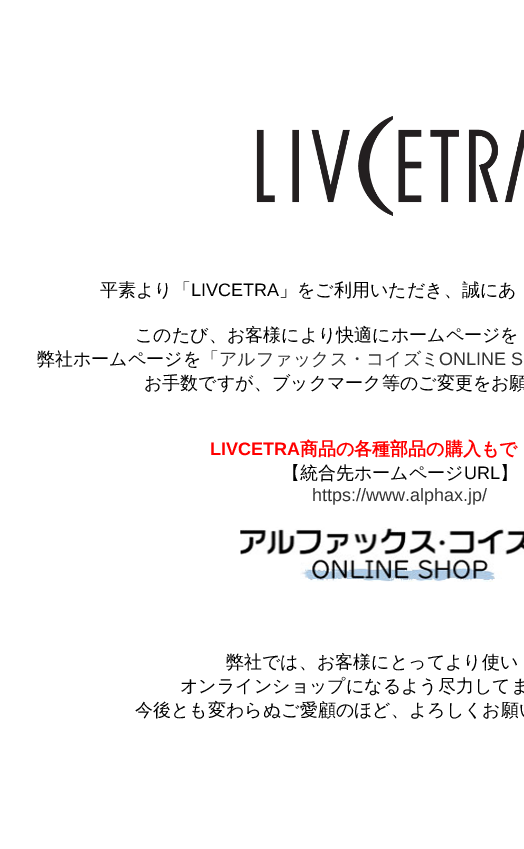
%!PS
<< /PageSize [524 849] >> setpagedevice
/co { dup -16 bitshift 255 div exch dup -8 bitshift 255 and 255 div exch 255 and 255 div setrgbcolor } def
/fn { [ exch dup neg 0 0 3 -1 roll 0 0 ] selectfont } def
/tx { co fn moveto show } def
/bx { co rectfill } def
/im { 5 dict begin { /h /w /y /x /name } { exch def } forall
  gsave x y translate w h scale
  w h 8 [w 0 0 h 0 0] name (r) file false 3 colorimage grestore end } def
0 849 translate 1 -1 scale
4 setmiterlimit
0 0 524 849 16#FFFFFF bx
(media/1.raw) 256 116 268 100 im
(media/2.raw) 240 527 284 55 im
(平素より「) 100 296 /WenQuanYiZenHei-Medium 18 16#000000 tx
(LIVCETRA) 191 296 /LiberationSans-Regular 18 16#000000 tx
(」をご利用いただき、誠にあ) 279 296 /WenQuanYiZenHei-Medium 18 16#000000 tx
(このたび、お客様により快適にホームページを) 135 341 /WenQuanYiZenHei-Medium 18 16#000000 tx
(弊社ホームページを「) 37 365 /WenQuanYiZenHei-Medium 18 16#000000 tx
(アルファックス・コイズミ) 219 365 /WenQuanYiZenHei-Medium 18 16#333333 tx
(ONLINE S) 439 365 /LiberationSans-Regular 18 16#333333 tx
(お手数ですが、ブックマーク等のご変更をお願) 144 389 /WenQuanYiZenHei-Medium 18 16#000000 tx
(LIVCETRA) 210 455 /LiberationSans-Bold 18 16#FF0000 tx
(商品の各種部品の購入もで) 300 455 /WenQuanYiZenHei-Bold 18 16#FF0000 tx
(【統合先ホームページ) 282 479 /WenQuanYiZenHei-Medium 18 16#000000 tx
(URL) 464 479 /LiberationSans-Regular 18 16#000000 tx
(】) 500 479 /WenQuanYiZenHei-Medium 18 16#000000 tx
(https://www.alphax.jp/) 312 501 /LiberationSans-Regular 18 16#333333 tx
(弊社では、お客様にとってより使い) 226 668 /WenQuanYiZenHei-Medium 18 16#000000 tx
(オンラインショップになるよう尽力してま) 180 692 /WenQuanYiZenHei-Medium 18 16#000000 tx
(今後とも変わらぬご愛顧のほど、よろしくお願い) 135 716 /WenQuanYiZenHei-Medium 18 16#000000 tx
showpage
